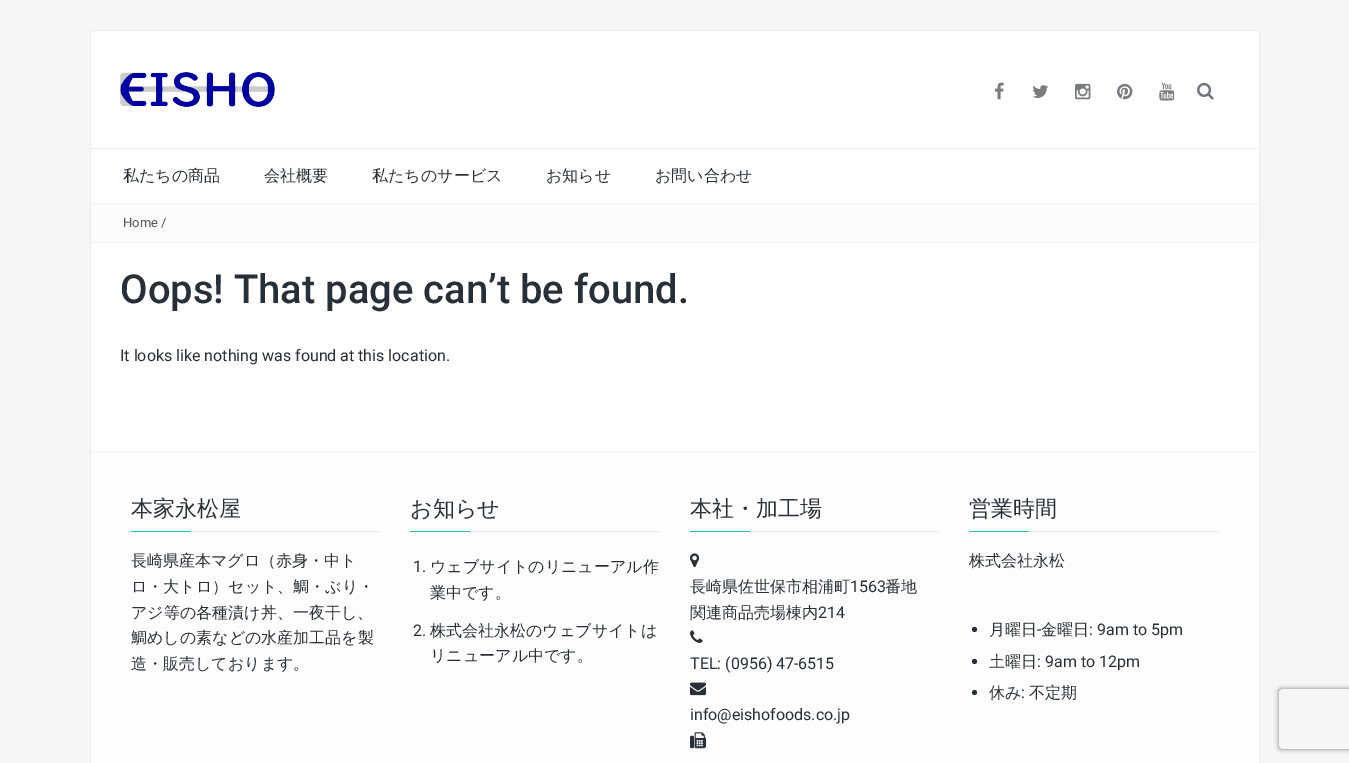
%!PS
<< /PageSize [1349 763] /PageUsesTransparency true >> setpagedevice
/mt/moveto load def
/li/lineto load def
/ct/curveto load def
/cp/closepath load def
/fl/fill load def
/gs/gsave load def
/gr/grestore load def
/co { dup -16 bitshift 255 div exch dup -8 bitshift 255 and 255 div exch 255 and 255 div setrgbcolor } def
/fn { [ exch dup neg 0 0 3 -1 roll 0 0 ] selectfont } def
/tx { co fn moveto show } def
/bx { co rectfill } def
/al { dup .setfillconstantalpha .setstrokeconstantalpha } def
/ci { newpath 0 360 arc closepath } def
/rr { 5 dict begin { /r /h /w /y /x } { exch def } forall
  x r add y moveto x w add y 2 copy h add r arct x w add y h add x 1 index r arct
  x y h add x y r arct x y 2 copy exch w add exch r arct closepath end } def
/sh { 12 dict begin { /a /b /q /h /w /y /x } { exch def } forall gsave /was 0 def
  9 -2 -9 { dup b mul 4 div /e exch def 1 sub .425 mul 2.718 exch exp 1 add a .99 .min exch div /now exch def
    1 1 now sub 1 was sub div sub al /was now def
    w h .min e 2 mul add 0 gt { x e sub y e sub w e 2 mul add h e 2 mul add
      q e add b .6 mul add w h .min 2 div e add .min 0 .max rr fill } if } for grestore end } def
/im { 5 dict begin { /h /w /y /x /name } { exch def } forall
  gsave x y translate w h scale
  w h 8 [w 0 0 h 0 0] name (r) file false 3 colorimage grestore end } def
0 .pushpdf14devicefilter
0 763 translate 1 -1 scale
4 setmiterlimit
0 0 1349 763 16#F6F6F6 bx
91 31 1168 420 16#FFFFFF bx
16#EDEDED co
90.5 30.5 1169 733 rectstroke
(media/1.raw) 120 72 155 35 im
(media/2.raw) 994 82 10 18 im
(media/3.raw) 1032 85 17 13 im
(media/4.raw) 1075 83 16 17 im
(media/5.raw) 1117 83 16 17 im
(media/6.raw) 1159 82 16 19 im
(media/7.raw) 1197 82 17 18 im
91 148 1168 1 16#EDEDED bx
91 204 1168 38 16#FCFCFC bx
91 203 1168 1 16#F4F4F4 bx
91 242 1168 1 16#F4F4F4 bx
91 452 1168 311 16#FDFDFD bx
191 531 189 1 16#EBEBEB bx
131 531 60 1 16#22C0BD bx
470 531 190 1 16#EBEBEB bx
410 531 60 1 16#22C0BD bx
750 531 189 1 16#EBEBEB bx
690 531 60 1 16#22C0BD bx
(media/8.raw) 690 553 10 15 im
(media/9.raw) 690 630 13 13 im
(media/10.raw) 690 682 16 14 im
(media/11.raw) 690 732 16 17 im
1029 531 190 1 16#EBEBEB bx
969 531 60 1 16#22C0BD bx
16#273039 co
974.5 629.5 2.5 ci fl
974.5 661.5 2.5 ci fl
974.5 692.5 2.5 ci fl
gs
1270 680 mt 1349 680 li 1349 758 li 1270 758 li cp 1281 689 mt 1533 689 li 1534 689 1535 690 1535 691 ct 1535 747 li 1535 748 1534 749 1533 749 ct 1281 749 li 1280 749 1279 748 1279 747 ct 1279 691 li 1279 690 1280 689 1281 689 ct cp eoclip newpath
16#808080 co
1279 689 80 60 2 2.5 1 sh
gr
(私たちの商品) 123 181 /WenQuanYiZenHei-Medium 16 16#273039 tx
(会社概要) 264 181 /WenQuanYiZenHei-Medium 16 16#273039 tx
(私たちのサービス) 372 181 /WenQuanYiZenHei-Medium 16 16#273039 tx
(お知らせ) 546 181 /WenQuanYiZenHei-Medium 16 16#273039 tx
(お問い合わせ) 655 181 /WenQuanYiZenHei-Medium 16 16#273039 tx
(Home) 123 227 /Roboto-Regular 13 16#525960 tx
(/) 161 227 /Roboto-Regular 13 16#525960 tx
(Oops! That page can’t be found.) 120 303 /Roboto-Medium 40 16#273039 tx
(It looks like nothing was found at this location.) 120 361 /Roboto-Regular 16 16#273039 tx
(本家永松屋) 131 516 /WenQuanYiZenHei-Medium 22 16#273039 tx
(長崎県産本マグロ（赤身・中ト) 131 566 /WenQuanYiZenHei-Medium 16 16#273039 tx
(ロ・大トロ）セット、鯛・ぶり・) 131 592 /WenQuanYiZenHei-Medium 16 16#273039 tx
(アジ等の各種漬け丼、一夜干し、) 131 618 /WenQuanYiZenHei-Medium 16 16#273039 tx
(鯛めしの素などの水産加工品を製) 131 643 /WenQuanYiZenHei-Medium 16 16#273039 tx
(造・販売しております。) 131 669 /WenQuanYiZenHei-Medium 16 16#273039 tx
(お知らせ) 410 516 /WenQuanYiZenHei-Medium 22 16#273039 tx
(1.) 413 572 /Roboto-Regular 16 16#273039 tx
(ウェブサイトのリニューアル作) 430 572 /WenQuanYiZenHei-Medium 16 16#273039 tx
(業中です。) 430 598 /WenQuanYiZenHei-Medium 16 16#273039 tx
(2.) 413 636 /Roboto-Regular 16 16#273039 tx
(株式会社永松のウェブサイトは) 430 636 /WenQuanYiZenHei-Medium 16 16#273039 tx
(リニューアル中です。) 430 661 /WenQuanYiZenHei-Medium 16 16#273039 tx
(本社・加工場) 690 516 /WenQuanYiZenHei-Medium 22 16#273039 tx
(長崎県佐世保市相浦町) 690 592 /WenQuanYiZenHei-Medium 16 16#273039 tx
(1563) 850 592 /Roboto-Regular 16 16#273039 tx
(番地) 885 592 /WenQuanYiZenHei-Medium 16 16#273039 tx
(関連商品売場棟内) 690 618 /WenQuanYiZenHei-Medium 16 16#273039 tx
(214) 818 618 /Roboto-Regular 16 16#273039 tx
(TEL: \(0956\) 47-6515) 690 669 /Roboto-Regular 16 16#273039 tx
(info@eishofoods.co.jp) 690 720 /Roboto-Regular 16 16#273039 tx
(営業時間) 969 516 /WenQuanYiZenHei-Medium 22 16#273039 tx
(株式会社永松) 969 566 /WenQuanYiZenHei-Medium 16 16#273039 tx
(月曜日) 989 635 /WenQuanYiZenHei-Medium 16 16#273039 tx
(-) 1037 635 /Roboto-Regular 16 16#273039 tx
(金曜日) 1041 635 /WenQuanYiZenHei-Medium 16 16#273039 tx
(: 9am to 5pm) 1089 635 /Roboto-Regular 16 16#273039 tx
(土曜日) 989 667 /WenQuanYiZenHei-Medium 16 16#273039 tx
(: 9am to 12pm) 1037 667 /Roboto-Regular 16 16#273039 tx
(休み) 989 698 /WenQuanYiZenHei-Medium 16 16#273039 tx
(:) 1021 698 /Roboto-Regular 16 16#273039 tx
(不定期) 1029 698 /WenQuanYiZenHei-Medium 16 16#273039 tx
.poppdf14devicefilter showpage
